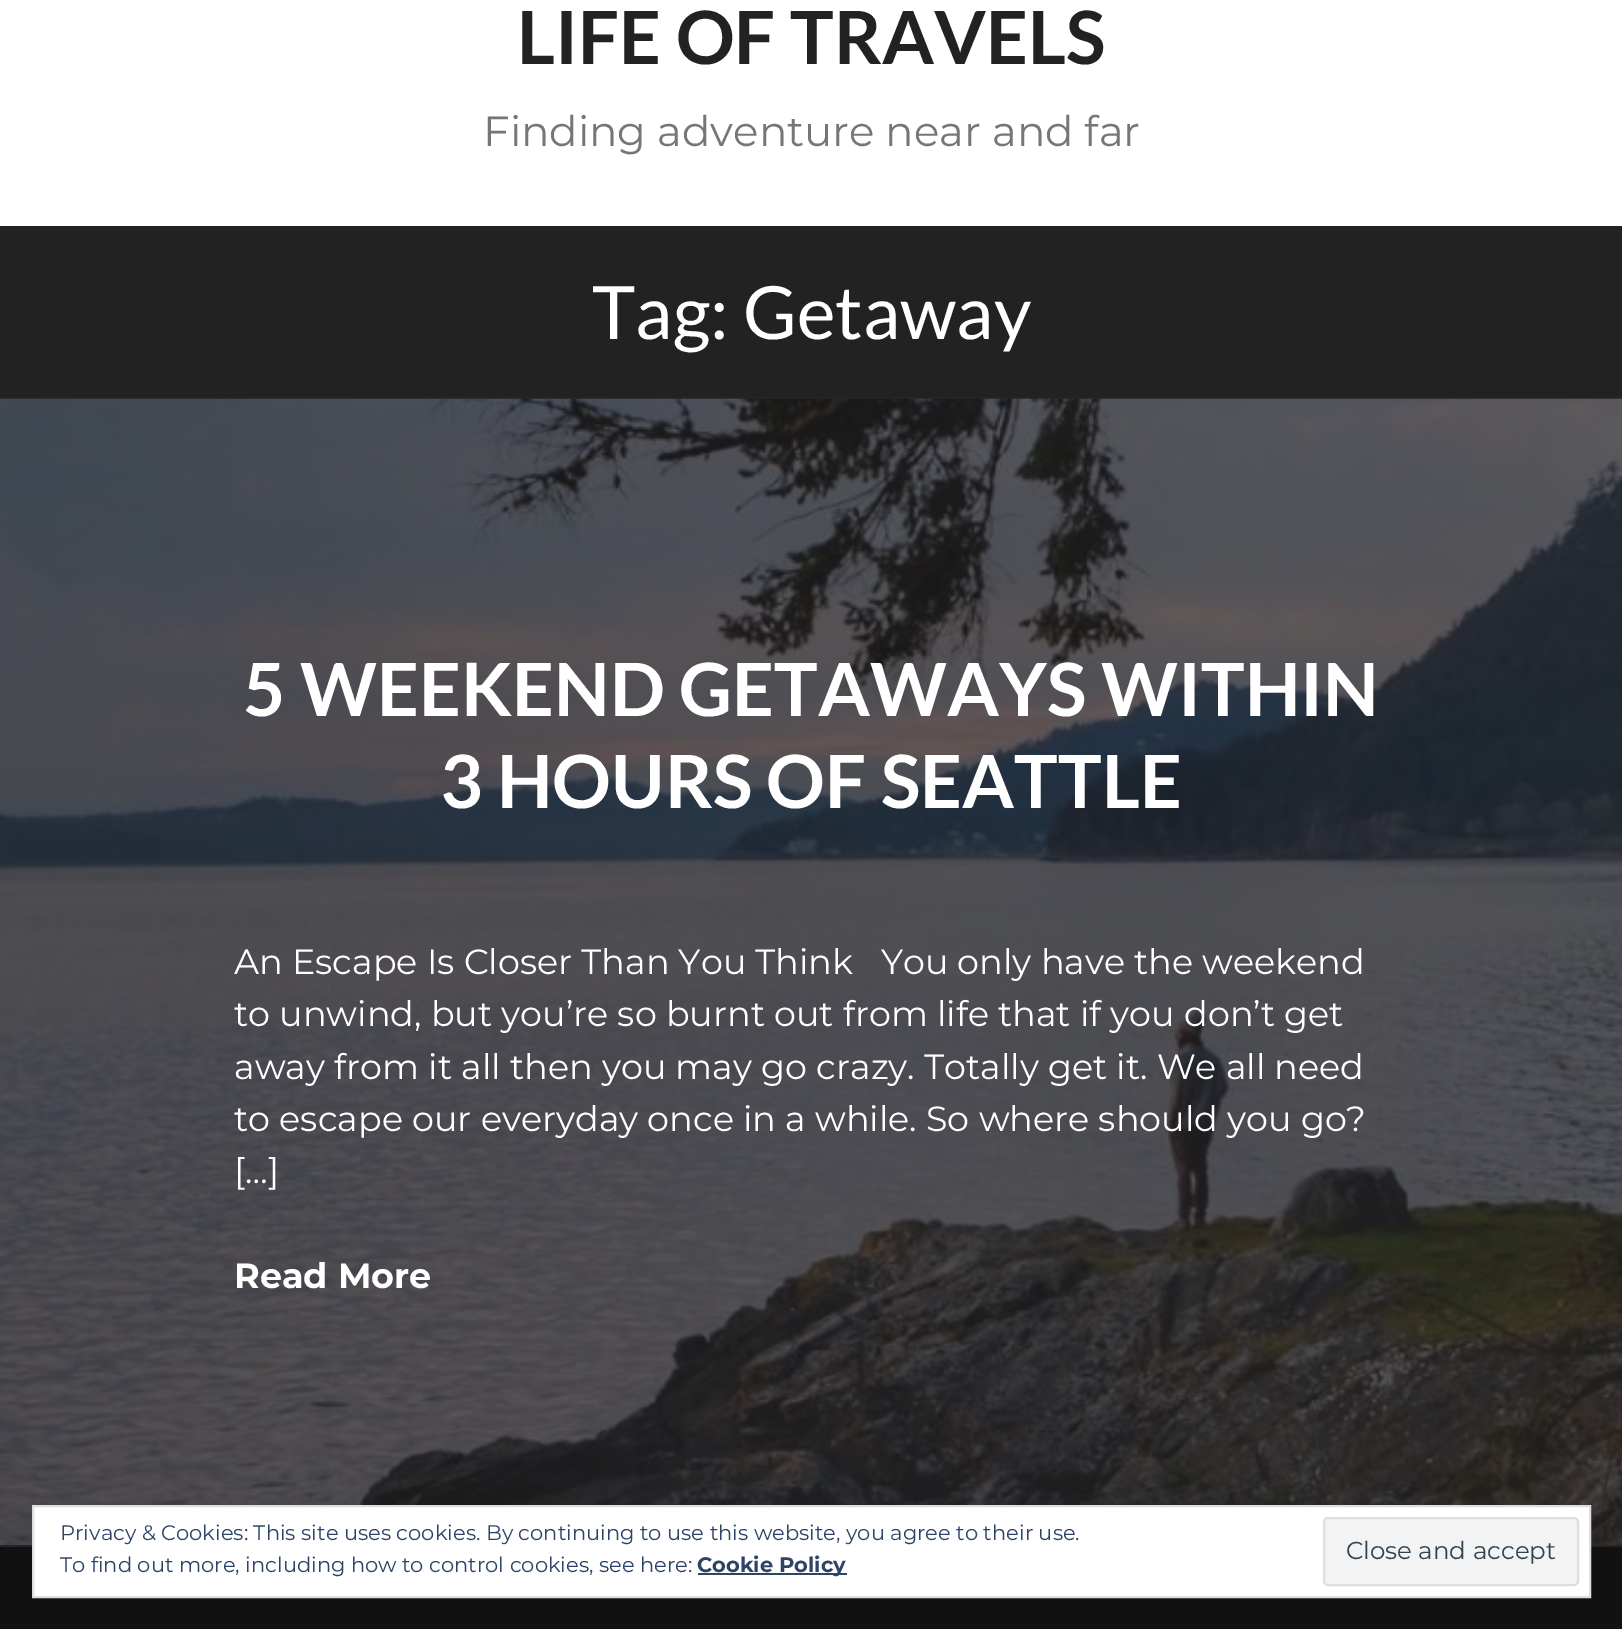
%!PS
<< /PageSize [1622 1629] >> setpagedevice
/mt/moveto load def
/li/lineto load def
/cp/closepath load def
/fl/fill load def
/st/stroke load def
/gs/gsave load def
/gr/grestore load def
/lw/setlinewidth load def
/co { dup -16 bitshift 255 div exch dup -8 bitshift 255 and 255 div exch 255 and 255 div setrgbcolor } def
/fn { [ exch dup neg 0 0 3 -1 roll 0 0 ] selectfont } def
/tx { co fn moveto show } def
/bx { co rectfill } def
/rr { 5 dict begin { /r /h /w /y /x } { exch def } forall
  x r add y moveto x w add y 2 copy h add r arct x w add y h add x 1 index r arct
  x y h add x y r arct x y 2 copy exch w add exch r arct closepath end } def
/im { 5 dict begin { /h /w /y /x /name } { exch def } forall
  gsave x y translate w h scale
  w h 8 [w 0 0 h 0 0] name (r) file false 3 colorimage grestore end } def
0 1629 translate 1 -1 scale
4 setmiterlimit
0 0 1622 1629 16#FFFFFF bx
0 226 1622 171 16#222222 bx
0 397 1622 2 16#252525 bx
0 399 1622 1146 16#222222 bx
0 1545 1622 2 16#252525 bx
(media/1.raw) 0 398 1622 1147 im
0 1547 1622 82 16#111111 bx
16#FFFFFF co
33 1506 mt 1590 1506 li 1590 1597 li 33 1597 li cp gs fl gr
16#DEDEDE co
2 lw
st
698 1573 149 2 16#2E4467 bx
16#F3F3F3 co
1324 1518 254 67 4 rr gs fl gr
16#DEDEDE co
st
(LIFE OF TRAVELS) 517 64 /Lato-Bold 73.5 16#222222 tx
(Finding adventure near and far) 483 146 /Montserrat-Regular 42 16#767676 tx
(Tag: Getaway) 592 339 /Lato-Regular 73.5 16#FFFFFF tx
(5 WEEKEND GETAWAYS WITHIN) 243 716 /Lato-Bold 73.5 16#FFFFFF tx
(3 HOURS OF SEATTLE) 440 808 /Lato-Bold 73.5 16#FFFFFF tx
(An Escape Is Closer Than You Think   You only have the weekend) 234 974 /Montserrat-Regular 35 16#FFFFFF tx
(to unwind, but you’re so burnt out from life that if you don’t get) 234 1026 /Montserrat-Regular 35 16#FFFFFF tx
(away from it all then you may go crazy. Totally get it. We all need) 234 1079 /Montserrat-Regular 35 16#FFFFFF tx
(to escape our everyday once in a while. So where should you go?) 234 1131 /Montserrat-Regular 35 16#FFFFFF tx
([…]) 234 1183 /Montserrat-Regular 35 16#FFFFFF tx
(Read More) 234 1288 /Montserrat-Bold 35 16#FFFFFF tx
(Privacy & Cookies: This site uses cookies. By continuing to use this website, you agree to their use.) 60 1540 /Montserrat-Regular 21 16#2E4467 tx
(To find out more, including how to control cookies, see here:) 60 1572 /Montserrat-Regular 21 16#2E4467 tx
(Cookie Policy) 697 1572 /Montserrat-Bold 21 16#2E4467 tx
(Close and accept) 1346 1559 /Montserrat-Regular 24.5 16#2E4453 tx
showpage
